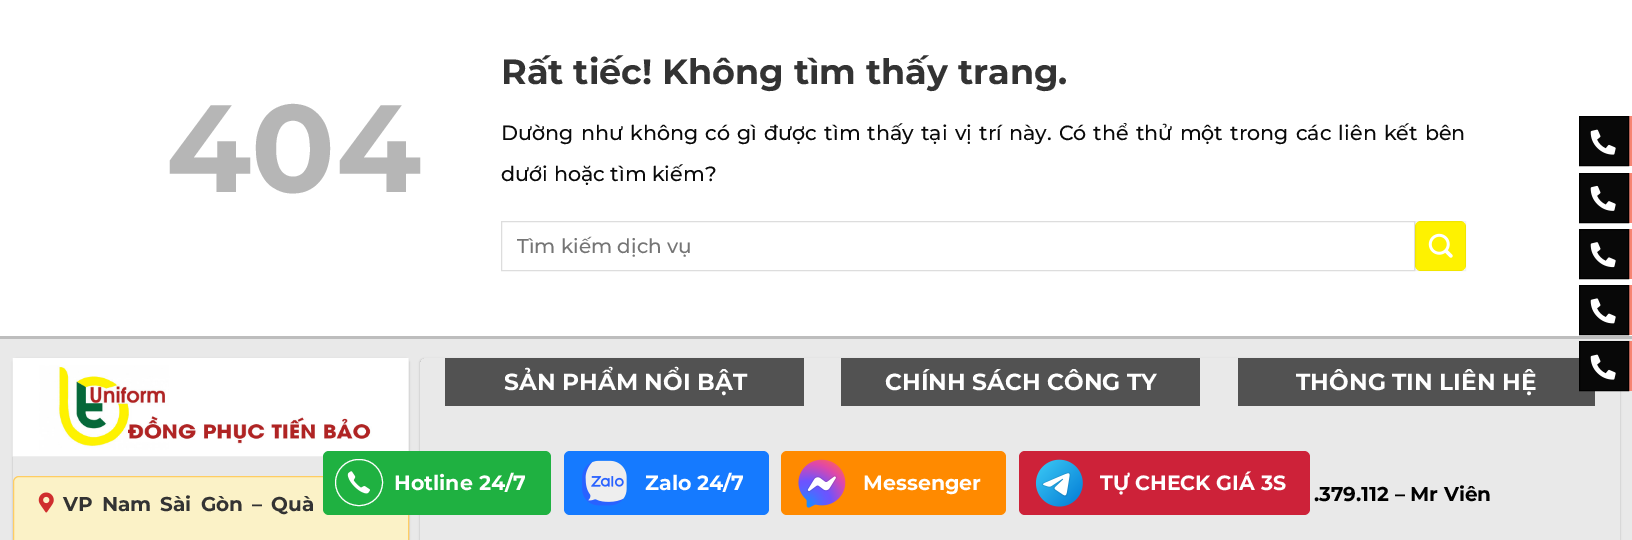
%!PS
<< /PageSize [1632 540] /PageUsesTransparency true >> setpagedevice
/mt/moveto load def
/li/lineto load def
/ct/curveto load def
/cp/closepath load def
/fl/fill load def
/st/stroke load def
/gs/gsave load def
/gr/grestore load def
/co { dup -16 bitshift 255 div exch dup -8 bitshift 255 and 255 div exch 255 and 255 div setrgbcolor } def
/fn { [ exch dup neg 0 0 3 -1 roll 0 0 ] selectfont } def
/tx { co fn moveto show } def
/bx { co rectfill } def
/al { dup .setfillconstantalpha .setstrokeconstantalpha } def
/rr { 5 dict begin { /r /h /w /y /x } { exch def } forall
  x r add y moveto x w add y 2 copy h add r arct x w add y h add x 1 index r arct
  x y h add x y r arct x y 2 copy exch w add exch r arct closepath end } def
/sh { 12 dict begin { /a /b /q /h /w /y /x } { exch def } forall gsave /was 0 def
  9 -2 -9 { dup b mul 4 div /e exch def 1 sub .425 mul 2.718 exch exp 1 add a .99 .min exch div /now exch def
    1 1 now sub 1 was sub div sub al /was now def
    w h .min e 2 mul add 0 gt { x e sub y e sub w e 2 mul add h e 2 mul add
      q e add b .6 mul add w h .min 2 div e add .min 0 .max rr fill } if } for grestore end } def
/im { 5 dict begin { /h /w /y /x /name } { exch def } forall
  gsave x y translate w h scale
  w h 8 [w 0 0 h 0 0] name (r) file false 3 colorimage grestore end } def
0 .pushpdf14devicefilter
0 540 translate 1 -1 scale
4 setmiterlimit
0 0 1632 540 16#FFFFFF bx
16#DDDDDD co
501.5 221.5 913 49 rectstroke
16#FEF200 co
1415 221 51 50 6 rr fl
0.05 al
16#000000 co
1415.5 221.5 50 49 rectstroke
1 al
(media/1.raw) 1428 233 25 25 im
0 339 1632 201 16#E9E9E9 bx
0 336 1632 3 16#BDBDBD bx
gs
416 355 mt 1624 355 li 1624 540 li 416 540 li cp 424 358 mt 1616 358 li 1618 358 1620 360 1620 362 ct 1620 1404 li 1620 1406 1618 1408 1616 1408 ct 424 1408 li 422 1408 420 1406 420 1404 ct 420 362 li 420 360 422 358 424 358 ct cp eoclip newpath
16#000000 co
420 359 1200 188 4 1 .24 sh
gr
445 358 359 48 16#525252 bx
841 358 359 48 16#525252 bx
1238 358 357 48 16#525252 bx
gs
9 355 mt 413 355 li 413 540 li 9 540 li cp 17 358 mt 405 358 li 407 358 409 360 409 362 ct 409 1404 li 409 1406 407 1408 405 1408 ct 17 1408 li 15 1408 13 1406 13 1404 ct 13 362 li 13 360 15 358 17 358 ct cp eoclip newpath
16#000000 co
13 359 396 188 4 1 .24 sh
gr
(media/2.raw) 12 358 397 99 im
0.84 al
16#FFF4C0 co
13.5 476.5 395 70 5.5 rr fl
1 al
16#FECD63 co
13.5 476.5 395 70 5.5 rr st
(media/3.raw) 38 492 16 21 im
gs 1629 116 mt 1632 116 li 1632 166 li 1629 166 li cp clip newpath
<< /ShadingType 2 /ColorSpace /DeviceRGB /Coords [1578 142 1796 142] /Extend [true true] /Function << /FunctionType 3 /Domain [0 1] /Functions [<< /FunctionType 2 /Domain [0 1] /C0 [.961 .373 .553] /C1 [.973 .682 .337] /N 1 >> << /FunctionType 2 /Domain [0 1] /C0 [.973 .682 .337] /C1 [.961 .373 .553] /N 1 >>] /Bounds [.51] /Encode [0 1 0 1] >> >> shfill gr
16#080808 co
1579.5 116.5 mt 1628.5 116.5 li 1628.5 165.5 li 1579.5 165.5 li cp gs fl gr
16#000000 co
st
(media/4.raw) 1590 129 26 26 im
gs 1629 173 mt 1632 173 li 1632 223 li 1629 223 li cp clip newpath
<< /ShadingType 2 /ColorSpace /DeviceRGB /Coords [1578 198 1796 198] /Extend [true true] /Function << /FunctionType 3 /Domain [0 1] /Functions [<< /FunctionType 2 /Domain [0 1] /C0 [.961 .373 .553] /C1 [.973 .682 .337] /N 1 >> << /FunctionType 2 /Domain [0 1] /C0 [.973 .682 .337] /C1 [.961 .373 .553] /N 1 >>] /Bounds [.51] /Encode [0 1 0 1] >> >> shfill gr
16#080808 co
1579.5 173.5 mt 1628.5 173.5 li 1628.5 222.5 li 1579.5 222.5 li cp gs fl gr
16#000000 co
st
(media/5.raw) 1590 185 26 26 im
gs 1629 229 mt 1632 229 li 1632 279 li 1629 279 li cp clip newpath
<< /ShadingType 2 /ColorSpace /DeviceRGB /Coords [1578 254 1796 254] /Extend [true true] /Function << /FunctionType 3 /Domain [0 1] /Functions [<< /FunctionType 2 /Domain [0 1] /C0 [.961 .373 .553] /C1 [.973 .682 .337] /N 1 >> << /FunctionType 2 /Domain [0 1] /C0 [.973 .682 .337] /C1 [.961 .373 .553] /N 1 >>] /Bounds [.51] /Encode [0 1 0 1] >> >> shfill gr
16#080808 co
1579.5 229.5 mt 1628.5 229.5 li 1628.5 278.5 li 1579.5 278.5 li cp gs fl gr
16#000000 co
st
(media/6.raw) 1590 242 26 26 im
gs 1629 285 mt 1632 285 li 1632 335 li 1629 335 li cp clip newpath
<< /ShadingType 2 /ColorSpace /DeviceRGB /Coords [1578 310 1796 310] /Extend [true true] /Function << /FunctionType 3 /Domain [0 1] /Functions [<< /FunctionType 2 /Domain [0 1] /C0 [.961 .373 .553] /C1 [.973 .682 .337] /N 1 >> << /FunctionType 2 /Domain [0 1] /C0 [.973 .682 .337] /C1 [.961 .373 .553] /N 1 >>] /Bounds [.51] /Encode [0 1 0 1] >> >> shfill gr
16#080808 co
1579.5 285.5 mt 1628.5 285.5 li 1628.5 334.5 li 1579.5 334.5 li cp gs fl gr
16#000000 co
st
(media/7.raw) 1590 298 26 26 im
gs 1629 341 mt 1632 341 li 1632 391 li 1629 391 li cp clip newpath
<< /ShadingType 2 /ColorSpace /DeviceRGB /Coords [1578 367 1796 367] /Extend [true true] /Function << /FunctionType 3 /Domain [0 1] /Functions [<< /FunctionType 2 /Domain [0 1] /C0 [.961 .373 .553] /C1 [.973 .682 .337] /N 1 >> << /FunctionType 2 /Domain [0 1] /C0 [.973 .682 .337] /C1 [.961 .373 .553] /N 1 >>] /Bounds [.51] /Encode [0 1 0 1] >> >> shfill gr
16#080808 co
1579.5 341.5 mt 1628.5 341.5 li 1628.5 390.5 li 1579.5 390.5 li cp gs fl gr
16#000000 co
st
(media/4.raw) 1590 354 26 26 im
16#1FB141 co
323 451 228 64 6 rr fl
16#FFFFFF co
335.5 459.5 47 46 23 rr st
(media/8.raw) 347 471 23 23 im
16#157AFF co
564 451 205 64 6 rr fl
(media/9.raw) 582 460 45 46 im
16#FF8A00 co
781 451 225 64 6 rr fl
(media/10.raw) 798 459 48 49 im
16#CD2239 co
1019 451 291 64 6 rr fl
(media/11.raw) 1035 459 48 48 im
(404) 166 192 /Montserrat-Bold 124 16#B6B6B6 tx
(Rất tiếc! Không tìm thấy trang.) 501 84 /Montserrat-Bold 35 16#333333 tx
/Montserrat-Medium 20.6 fn
16#0A0A0A co
501 140 mt 1.6 0 32 (Dường như không có gì được tìm thấy tại vị trí này. Có thể thử một trong các liên kết bên) widthshow
(dưới hoặc tìm kiếm?) 501 181 /Montserrat-Medium 20.6 16#0A0A0A tx
(Tìm kiếm dịch vụ) 517 253 /Montserrat-Medium 20 16#757575 tx
(SẢN PHẨM NỔI BẬT) 504 390 /Montserrat-Bold 23.25 16#FFFFFF tx
(CHÍNH SÁCH CÔNG TY) 885 390 /Montserrat-Bold 23.25 16#FFFFFF tx
(THÔNG TIN LIÊN HỆ) 1296 390 /Montserrat-Bold 23.25 16#FFFFFF tx
(.379.112 – Mr Viên) 1314 501 /Montserrat-Bold 20 16#000000 tx
16#333333 co
63 511 mt 3.5 0 32 (VP Nam Sài Gòn – Quà) widthshow
(Hotline 24/7) 394 490 /Montserrat-Bold 20.6 16#FFFFFF tx
(Zalo 24/7) 645 490 /Montserrat-Bold 20.6 16#FFFFFF tx
(Messenger) 863 490 /Montserrat-Bold 20.6 16#FFFFFF tx
(TỰ CHECK GIÁ 3S) 1100 490 /Montserrat-Bold 20.6 16#FFFFFF tx
.poppdf14devicefilter showpage
